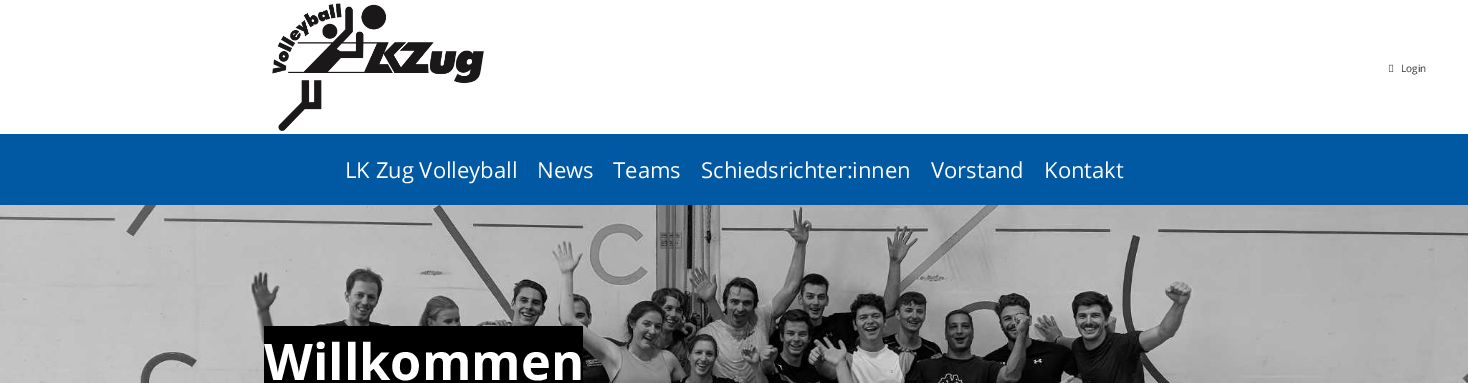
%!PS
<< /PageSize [1468 383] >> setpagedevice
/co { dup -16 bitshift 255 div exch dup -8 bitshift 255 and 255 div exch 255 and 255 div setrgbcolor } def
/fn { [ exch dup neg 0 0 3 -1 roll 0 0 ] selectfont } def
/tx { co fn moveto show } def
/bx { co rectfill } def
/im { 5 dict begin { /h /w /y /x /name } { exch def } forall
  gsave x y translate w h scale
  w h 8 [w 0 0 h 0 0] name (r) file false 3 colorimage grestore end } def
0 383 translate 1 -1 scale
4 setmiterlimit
0 0 1468 383 16#FFFFFF bx
(media/1.raw) 272 3 212 128 im
(media/2.raw) 1388 64 6 8 im
0 134 1468 71 16#0059A2 bx
(media/3.raw) 0 205 1468 178 im
264 326 319 57 16#000000 bx
(Login) 1401 72 /OpenSans-Regular 10 16#333333 tx
(LK Zug Volleyball) 345 178 /OpenSans-Regular 22 16#FFFFFF tx
(News) 537 178 /OpenSans-Regular 22 16#FFFFFF tx
(Teams) 613 178 /OpenSans-Regular 22 16#FFFFFF tx
(Schiedsrichter:innen) 701 178 /OpenSans-Regular 22 16#FFFFFF tx
(Vorstand) 931 178 /OpenSans-Regular 22 16#FFFFFF tx
(Kontakt) 1044 178 /OpenSans-Regular 22 16#FFFFFF tx
(Willkommen) 264 380 /OpenSans-Bold 50.5 16#FFFFFF tx
showpage
